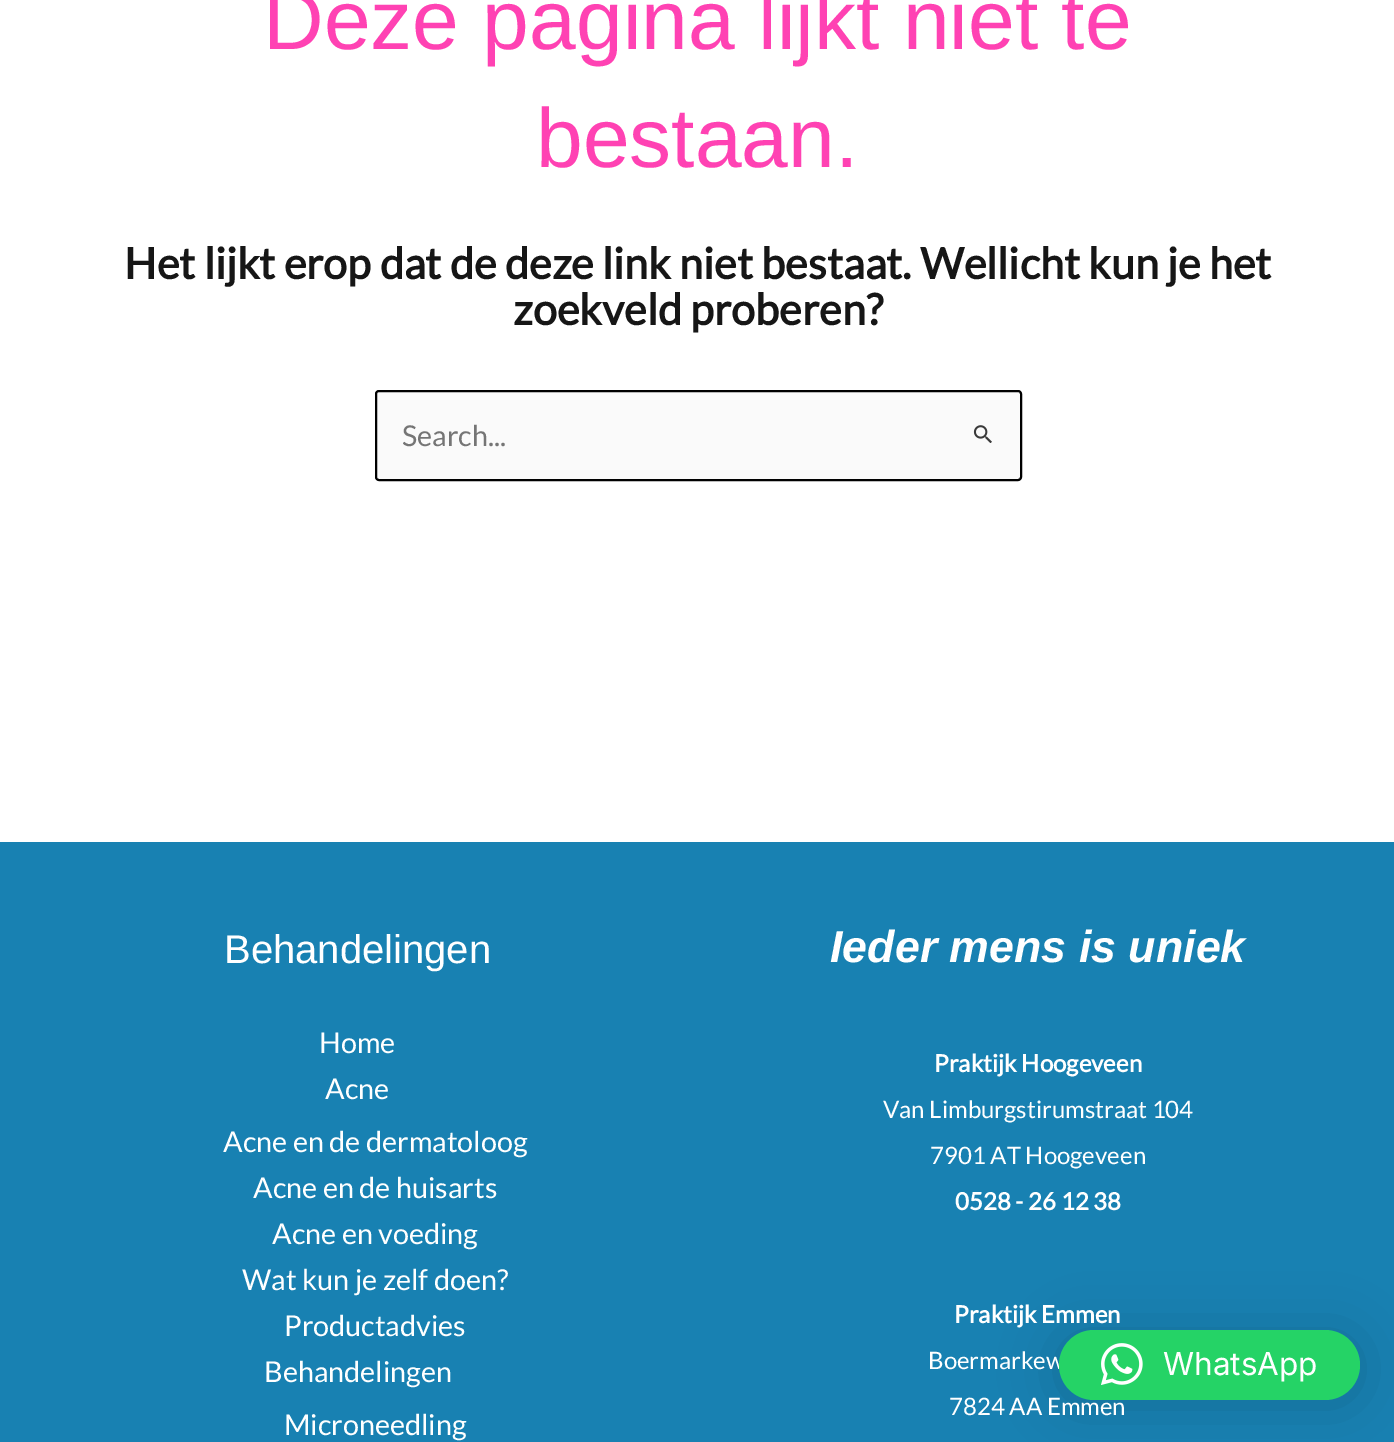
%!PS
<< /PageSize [1394 1442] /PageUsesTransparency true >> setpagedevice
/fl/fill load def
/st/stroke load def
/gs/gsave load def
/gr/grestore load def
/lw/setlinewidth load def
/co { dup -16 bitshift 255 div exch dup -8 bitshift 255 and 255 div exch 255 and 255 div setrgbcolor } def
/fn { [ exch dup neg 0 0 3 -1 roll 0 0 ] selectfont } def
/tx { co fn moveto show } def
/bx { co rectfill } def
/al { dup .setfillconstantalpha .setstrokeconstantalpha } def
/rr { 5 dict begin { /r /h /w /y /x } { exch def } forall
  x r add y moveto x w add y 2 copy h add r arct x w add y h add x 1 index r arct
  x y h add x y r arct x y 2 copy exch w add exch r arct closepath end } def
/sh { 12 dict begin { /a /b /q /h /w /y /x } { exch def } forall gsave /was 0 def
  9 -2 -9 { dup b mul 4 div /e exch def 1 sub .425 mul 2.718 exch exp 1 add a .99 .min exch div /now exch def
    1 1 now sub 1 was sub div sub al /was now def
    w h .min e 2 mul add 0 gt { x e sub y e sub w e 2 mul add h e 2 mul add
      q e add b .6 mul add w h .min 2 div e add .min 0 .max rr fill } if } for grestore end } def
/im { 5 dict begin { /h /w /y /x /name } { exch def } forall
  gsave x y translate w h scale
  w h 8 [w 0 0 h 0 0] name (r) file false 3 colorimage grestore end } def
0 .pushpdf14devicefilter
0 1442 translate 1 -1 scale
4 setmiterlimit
0 0 1394 1442 16#FFFFFF bx
16#FAFAFA co
376 391 645 89 3 rr gs fl gr
16#000000 co
2 lw
st
(media/1.raw) 973 425 19 18 im
0 842 1394 600 16#1881B2 bx
16#000000 co
1059 1334 301 70 35 28 .16 sh
(Deze pagina lijkt niet te) 263 49 /LiberationSans-Regular 84 16#FF42B3 tx
(bestaan.) 536 167 /LiberationSans-Regular 84 16#FF42B3 tx
(Het lijkt erop dat de deze link niet bestaat. Wellicht kun je het) 124 279 /Lato-Bold 43.1 16#161616 tx
(zoekveld proberen?) 513 325 /Lato-Bold 43.1 16#161616 tx
(Search...) 402 446 /Lato-Regular 28.75 16#757575 tx
(Behandelingen) 224 963 /LiberationSans-Regular 40 16#FFFFFF tx
(Home) 319 1053 /Lato-Regular 28.75 16#FFFFFF tx
(Acne) 325 1099 /Lato-Regular 28.75 16#FFFFFF tx
(Acne en de dermatoloog) 223 1152 /Lato-Regular 28.75 16#FFFFFF tx
(Acne en de huisarts) 253 1198 /Lato-Regular 28.75 16#FFFFFF tx
(Acne en voeding) 272 1244 /Lato-Regular 28.75 16#FFFFFF tx
(Wat kun je zelf doen?) 242 1290 /Lato-Regular 28.75 16#FFFFFF tx
(Productadvies) 284 1336 /Lato-Regular 28.75 16#FFFFFF tx
(Behandelingen) 264 1382 /Lato-Regular 28.75 16#FFFFFF tx
(Microneedling) 284 1435 /Lato-Regular 28.75 16#FFFFFF tx
(Ieder mens is uniek) 830 962 /LiberationSans-BoldItalic 44.75 16#FFFFFF tx
(Praktijk Hoogeveen) 934 1072 /Lato-Bold 24 16#FFFFFF tx
(Van Limburgstirumstraat 104) 883 1118 /Lato-Regular 24 16#FFFFFF tx
(7901 AT Hoogeveen) 930 1164 /Lato-Regular 24 16#FFFFFF tx
(0528 - 26 12 38) 955 1210 /Lato-Bold 24 16#FFFFFF tx
(Praktijk Emmen) 954 1323 /Lato-Bold 24 16#FFFFFF tx
(Boermarkew) 928 1369 /Lato-Regular 24 16#FFFFFF tx
(7824 AA Emmen) 949 1415 /Lato-Regular 24 16#FFFFFF tx
16#25D366 co
1059 1330 301 70 35 rr fl
(media/2.raw) 1101 1343 42 42 im
(WhatsApp) 1163 1375 /Inter-Regular 31.5 16#FFFFFF tx
.poppdf14devicefilter showpage
